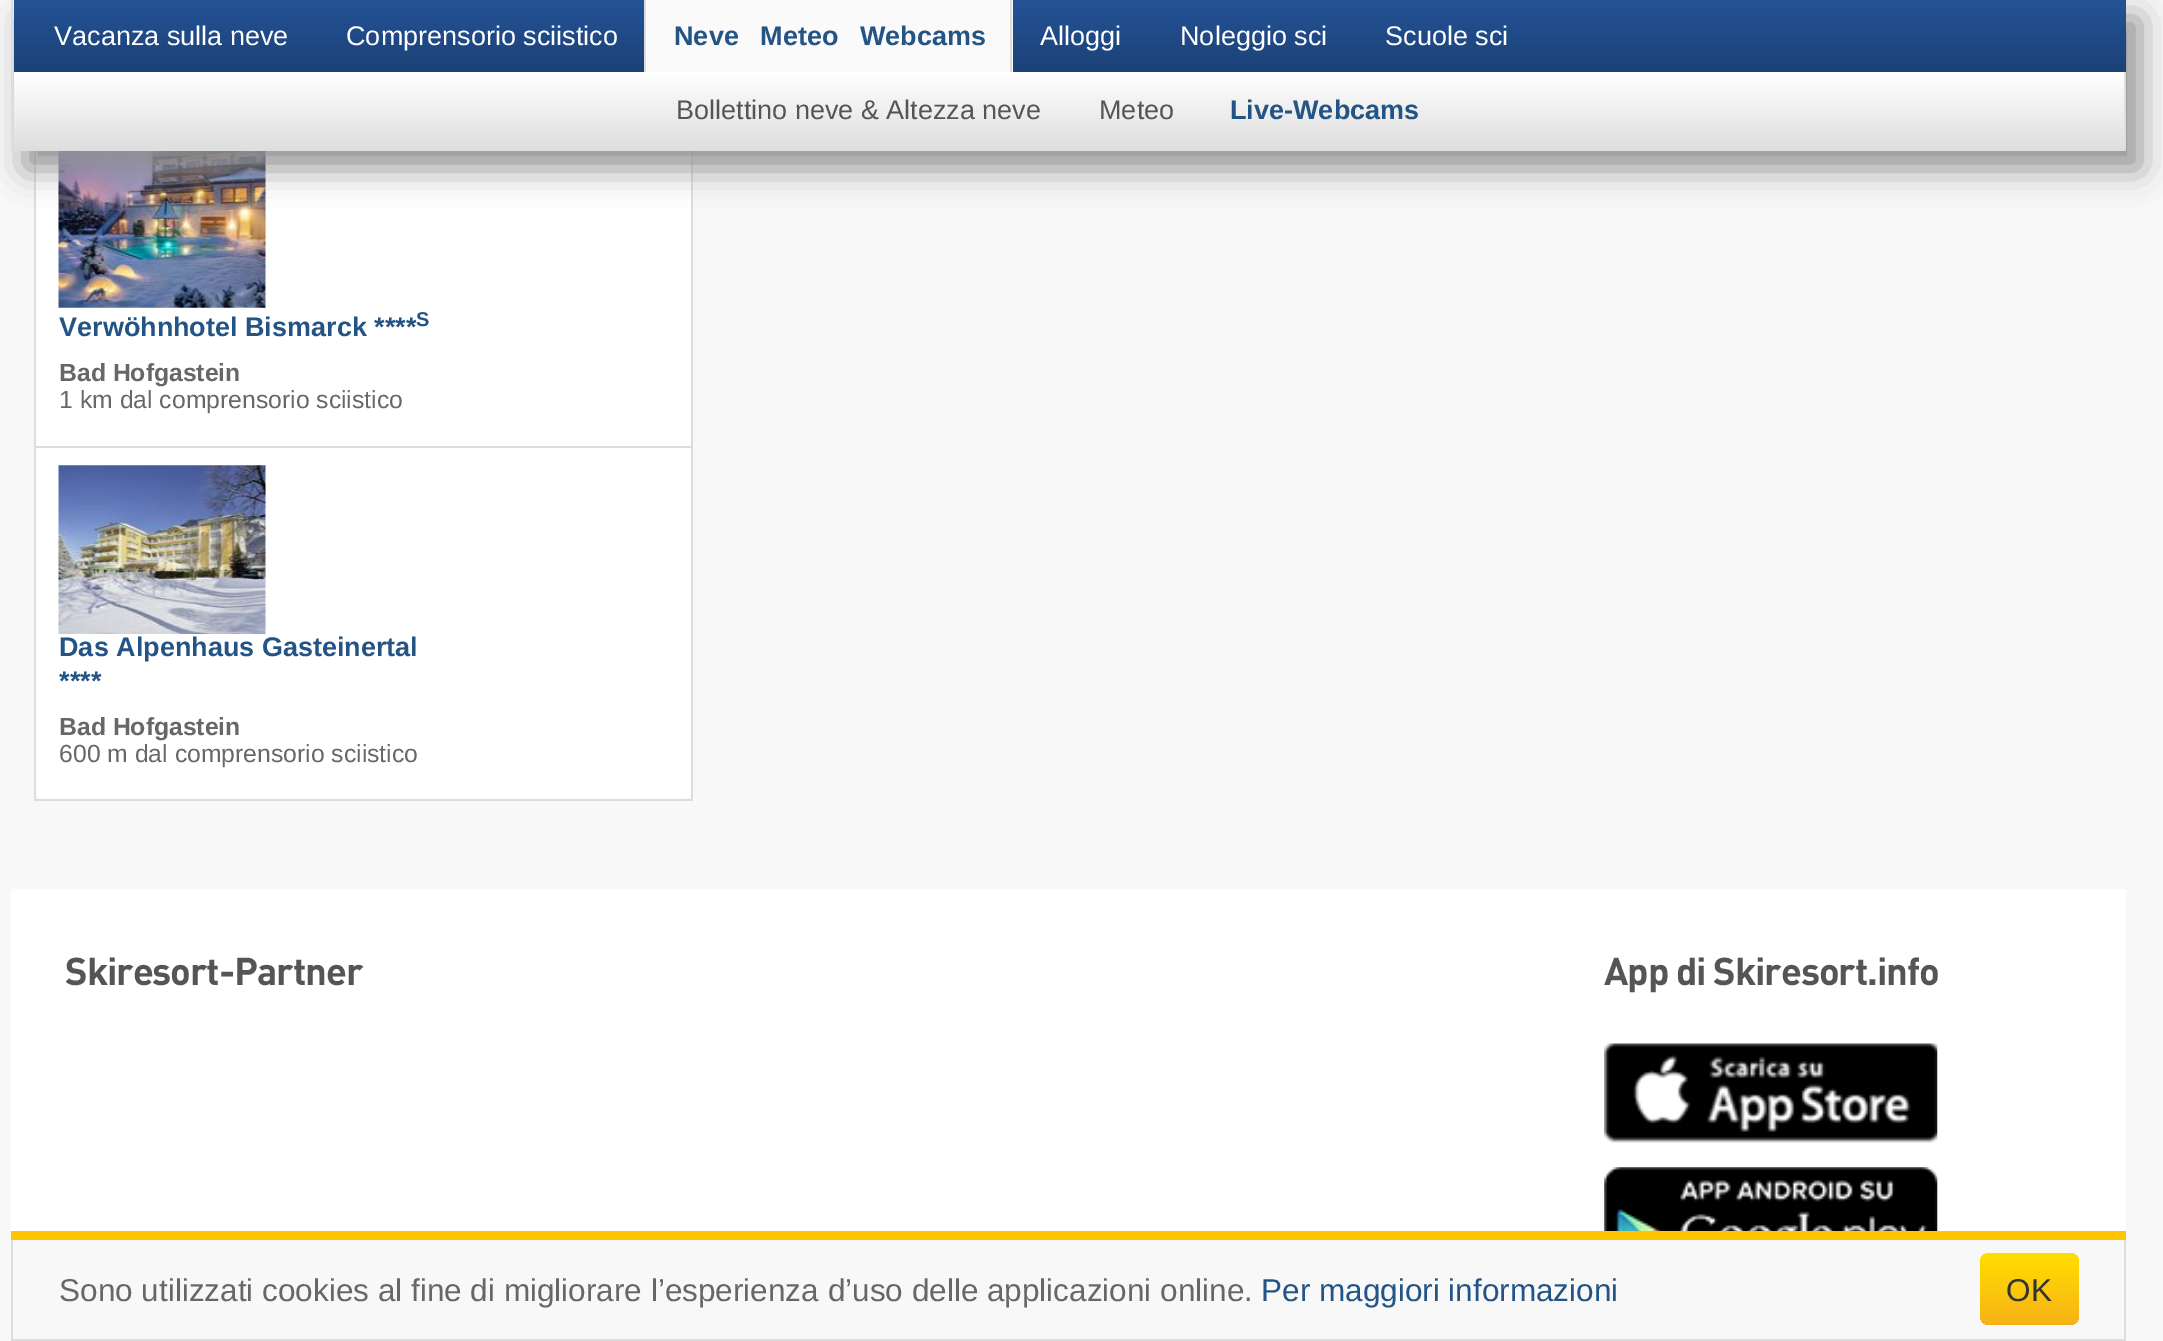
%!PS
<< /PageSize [2163 1341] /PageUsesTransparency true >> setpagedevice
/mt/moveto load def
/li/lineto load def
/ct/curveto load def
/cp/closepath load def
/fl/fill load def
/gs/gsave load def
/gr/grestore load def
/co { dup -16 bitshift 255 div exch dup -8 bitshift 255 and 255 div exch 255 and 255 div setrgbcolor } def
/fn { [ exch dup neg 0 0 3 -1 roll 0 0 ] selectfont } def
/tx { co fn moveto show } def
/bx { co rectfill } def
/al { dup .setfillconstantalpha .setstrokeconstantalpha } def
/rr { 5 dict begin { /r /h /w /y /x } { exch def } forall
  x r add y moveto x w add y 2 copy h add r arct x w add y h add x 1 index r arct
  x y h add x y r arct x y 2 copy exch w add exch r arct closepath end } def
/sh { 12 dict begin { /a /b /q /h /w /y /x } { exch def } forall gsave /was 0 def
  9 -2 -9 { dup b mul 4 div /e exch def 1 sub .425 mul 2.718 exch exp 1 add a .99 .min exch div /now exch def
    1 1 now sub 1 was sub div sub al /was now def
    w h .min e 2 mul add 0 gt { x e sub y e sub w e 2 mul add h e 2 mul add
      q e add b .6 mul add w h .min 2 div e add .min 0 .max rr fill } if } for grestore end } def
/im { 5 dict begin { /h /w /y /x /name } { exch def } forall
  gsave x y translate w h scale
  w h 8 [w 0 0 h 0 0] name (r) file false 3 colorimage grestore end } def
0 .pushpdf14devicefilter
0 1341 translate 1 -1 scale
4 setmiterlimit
0 0 2163 1341 16#F8F8F8 bx
691 151 2 650 16#DDDDDD bx
34 799 659 2 16#DDDDDD bx
34 151 2 650 16#DDDDDD bx
36 151 655 295 16#FFFFFF bx
(media/1.raw) 58 151 208 157 im
16#919191 co
25 18 2115 151 0 17 1 sh
2124 72 2 79 16#DDDDDD bx
11 0 2 151 16#DDDDDD bx
gs 14 0 mt 2126 0 li 2126 72 li 14 72 li cp clip newpath
<< /ShadingType 2 /ColorSpace /DeviceRGB /Coords [1070 0 1070 72] /Extend [true true] /Function << /FunctionType 2 /Domain [0 1] /C0 [.141 .325 .588] /C1 [.11 .255 .467] /N 1 >> >> shfill gr
646 0 367 72 16#FAFAFA bx
1010 0 2 72 16#DDDDDD bx
644 0 2 72 16#DDDDDD bx
gs 14 72 mt 2124 72 li 2124 151 li 14 151 li cp clip newpath
<< /ShadingType 2 /ColorSpace /DeviceRGB /Coords [1069 72 1069 151] /Extend [true true] /Function << /FunctionType 2 /Domain [0 1] /C0 [1 1 1] /C1 [.871 .871 .871] /N 1 >> >> shfill gr
16#FFFFFF co
36 446 mt 691 446 li 691 792 li 691 796 688 799 684 799 ct 43 799 li 39 799 36 796 36 792 ct cp fl
36 446 655 2 16#DDDDDD bx
(media/2.raw) 58 465 208 169 im
11 889 2115 342 16#FFFFFF bx
(media/3.raw) 1604 1043 334 100 im
(media/4.raw) 1604 1167 334 64 im
11 1231 2115 9 16#FFC600 bx
2124 1240 2 101 16#DDDDDD bx
11 1339 2115 2 16#DDDDDD bx
11 1240 2 101 16#DDDDDD bx
gs 1980 1253 99 72 9 rr clip newpath
<< /ShadingType 2 /ColorSpace /DeviceRGB /Coords [2030 1253 2030 1325] /Extend [true true] /Function << /FunctionType 2 /Domain [0 1] /C0 [1 .875 0] /C1 [.973 .694 .086] /N 1 >> >> shfill gr
(Vacanza sulla neve) 54 45 /LiberationSans-Regular 27 16#FFFFFF tx
(Comprensorio sciistico) 346 45 /LiberationSans-Regular 27 16#FFFFFF tx
/LiberationSans-Bold 27 fn
16#235485 co
674 45 mt 14 0 32 (Neve Meteo Webcams) widthshow
(Bollettino neve & Altezza neve) 676 119 /LiberationSans-Regular 27 16#555555 tx
(Meteo) 1099 119 /LiberationSans-Regular 27 16#555555 tx
(Live-Webcams) 1230 119 /LiberationSans-Bold 27 16#235485 tx
(Alloggi) 1040 45 /LiberationSans-Regular 27 16#FFFFFF tx
(Noleggio sci) 1180 45 /LiberationSans-Regular 27 16#FFFFFF tx
(Scuole sci) 1385 45 /LiberationSans-Regular 27 16#FFFFFF tx
(Verwöhnhotel Bismarck ****) 59 336 /LiberationSans-Bold 27 16#235485 tx
(S) 416 326 /LiberationSans-Bold 20 16#235485 tx
(Bad Hofgastein) 59 381 /LiberationSans-Bold 24.75 16#676767 tx
(1 km dal comprensorio sciistico) 59 408 /LiberationSans-Regular 24.75 16#676767 tx
(Das Alpenhaus Gasteinertal) 59 656 /LiberationSans-Bold 27 16#235485 tx
(****) 59 690 /LiberationSans-Bold 27 16#235485 tx
(Bad Hofgastein) 59 735 /LiberationSans-Bold 24.75 16#676767 tx
(600 m dal comprensorio sciistico) 59 762 /LiberationSans-Regular 24.75 16#676767 tx
/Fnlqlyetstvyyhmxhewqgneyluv-Bold 38.25 fn
16#555555 co
65 985 mt -1.1 0 (Skiresort-Partner) ashow
1604 985 mt -1.1 0 (App di Skiresort.info) ashow
(Sono utilizzati cookies al fine di migliorare l’esperienza d’uso delle applicazioni online.) 59 1301 /LiberationSans-Regular 31.5 16#676767 tx
(Per maggiori informazioni) 1261 1301 /LiberationSans-Regular 31.5 16#235485 tx
(OK) 2006 1301 /LiberationSans-Regular 31.5 16#333333 tx
.poppdf14devicefilter showpage
